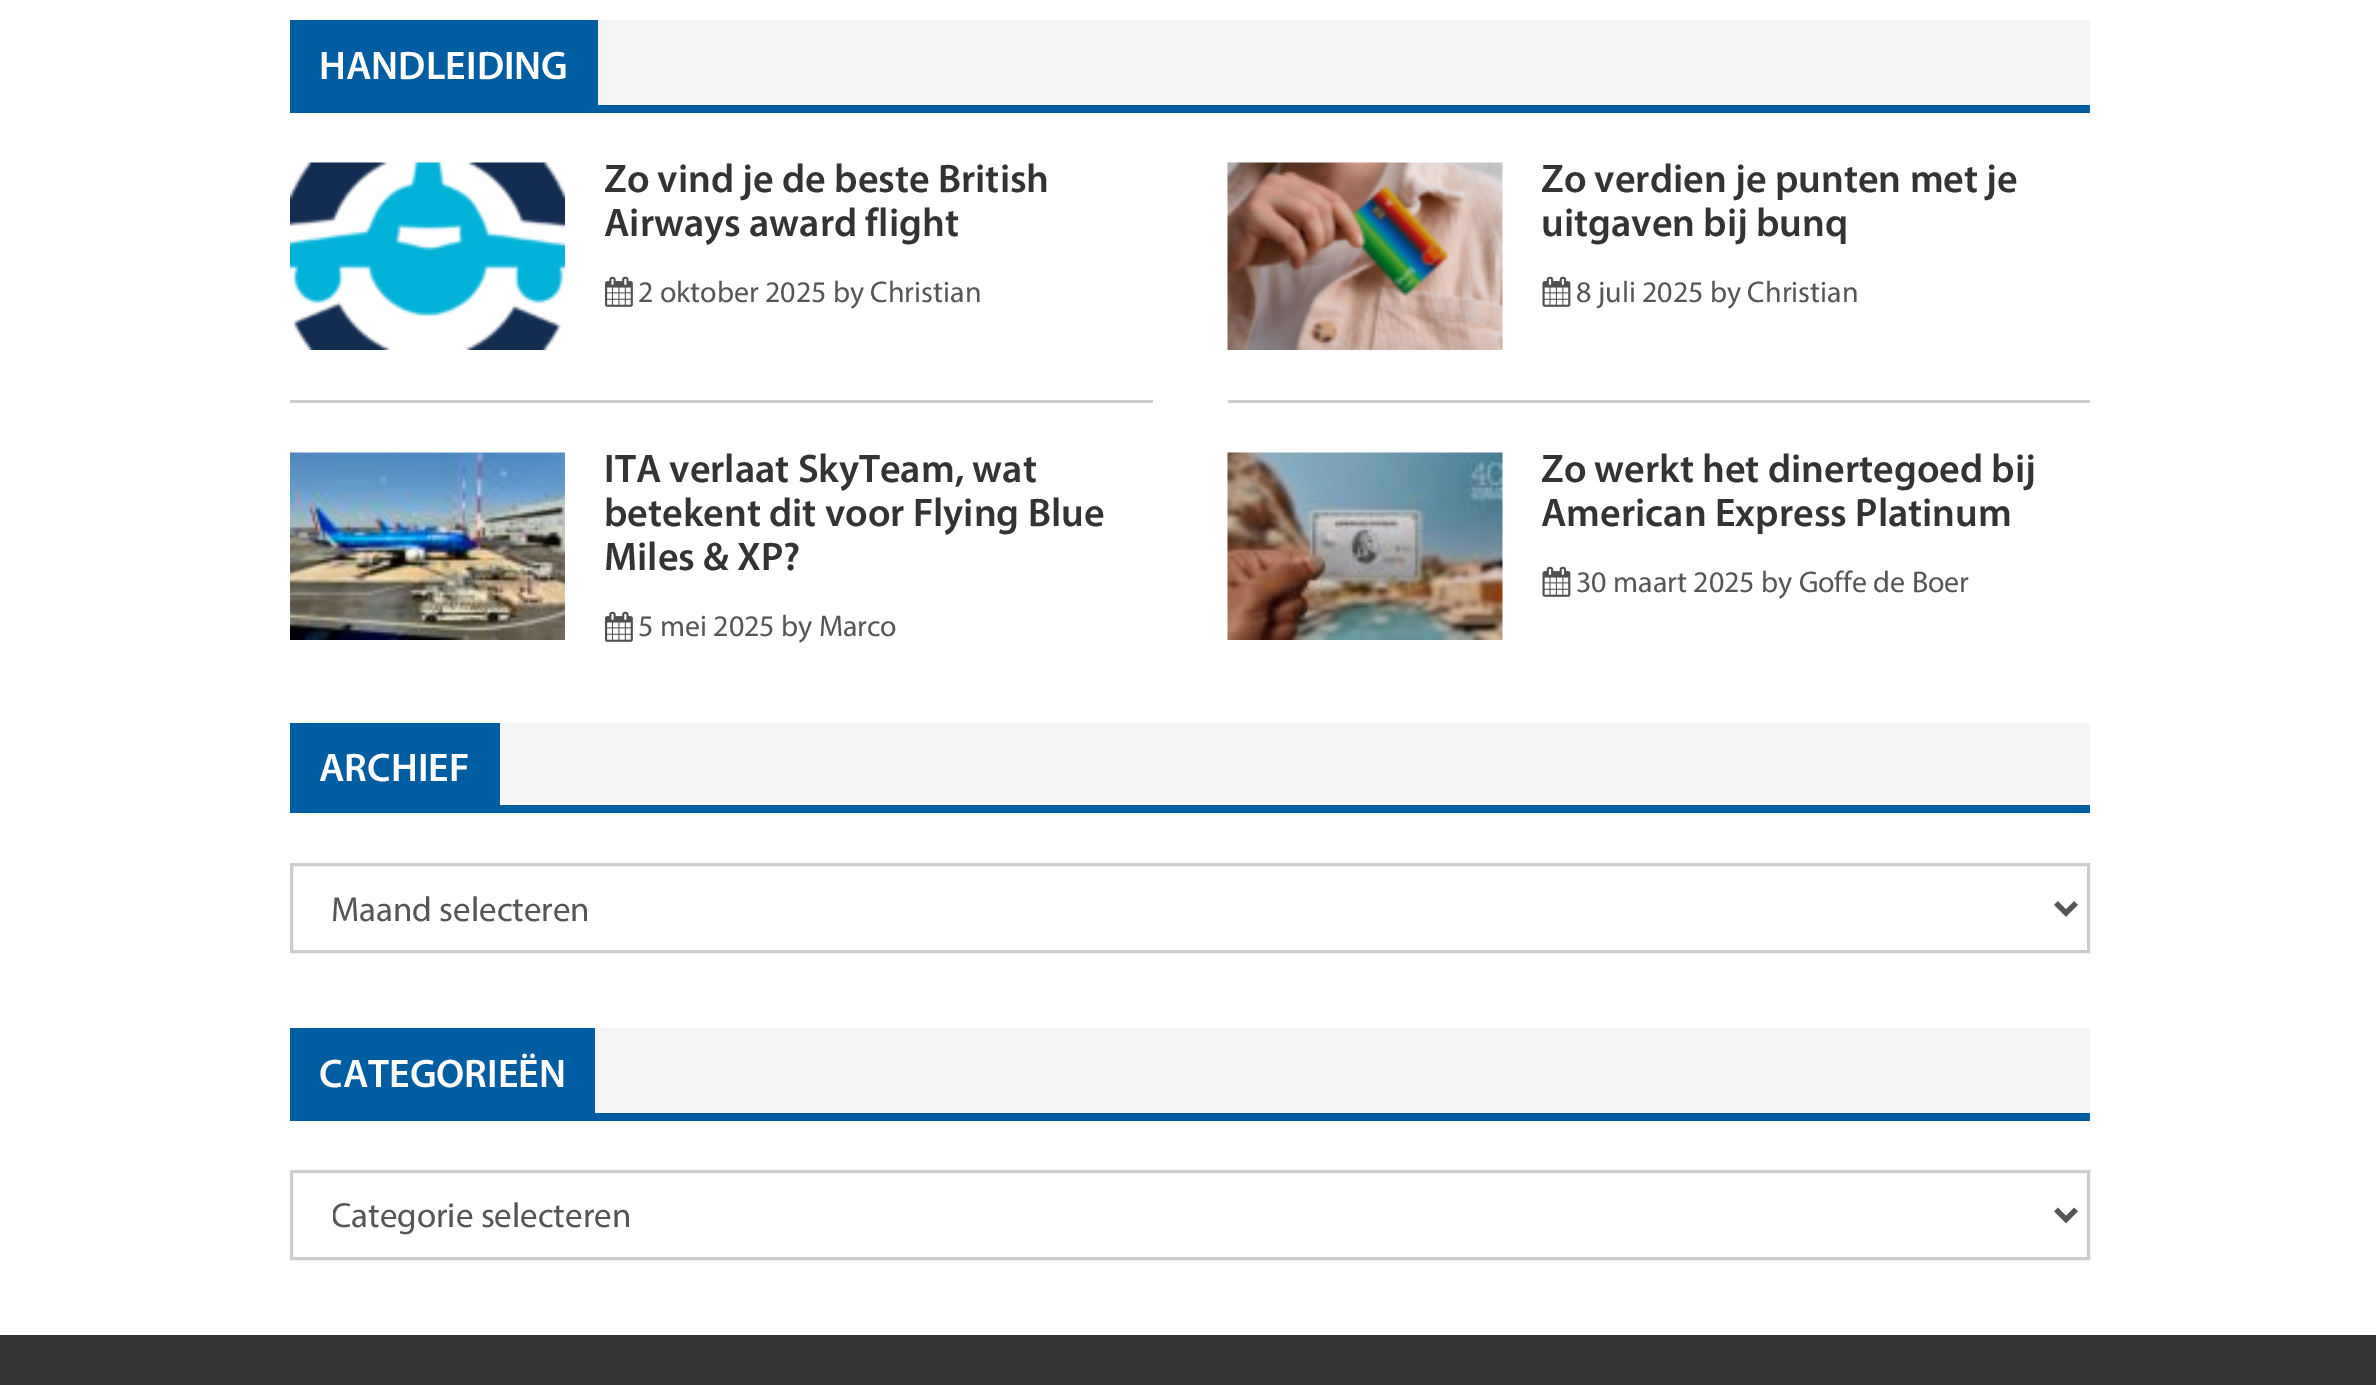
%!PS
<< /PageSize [2376 1385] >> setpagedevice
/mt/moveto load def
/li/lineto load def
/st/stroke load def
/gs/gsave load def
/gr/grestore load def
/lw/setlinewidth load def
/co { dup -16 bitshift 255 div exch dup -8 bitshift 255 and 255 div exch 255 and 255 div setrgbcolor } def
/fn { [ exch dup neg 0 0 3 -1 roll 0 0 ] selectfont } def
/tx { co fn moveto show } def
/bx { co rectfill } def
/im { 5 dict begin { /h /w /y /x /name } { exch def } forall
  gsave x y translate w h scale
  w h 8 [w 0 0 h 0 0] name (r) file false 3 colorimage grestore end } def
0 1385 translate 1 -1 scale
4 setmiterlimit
0 0 2376 1385 16#FFFFFF bx
598 20 1492 85 16#F5F5F5 bx
290 105 1800 8 16#015DA2 bx
290 20 308 85 16#015DA2 bx
290 400 863 3 16#CCCCCC bx
(media/1.raw) 290 162 275 188 im
(media/2.raw) 605 276 28 31 im
1228 400 862 3 16#CCCCCC bx
(media/3.raw) 1227 162 276 188 im
(media/4.raw) 1542 276 29 31 im
(media/5.raw) 290 452 275 188 im
(media/2.raw) 605 611 28 31 im
(media/6.raw) 1227 452 276 188 im
(media/4.raw) 1542 566 29 31 im
500 723 1590 82 16#F5F5F5 bx
290 805 1800 8 16#015DA2 bx
290 723 210 82 16#015DA2 bx
16#CCCCCC co
3 lw
291.5 864.5 1797 87 rectstroke
16#555555 co
5 lw
2056 903 mt 2066 913 li 2076 903 li st
595 1028 1495 85 16#F5F5F5 bx
290 1113 1800 8 16#015DA2 bx
290 1028 305 85 16#015DA2 bx
16#CCCCCC co
3 lw
291.5 1171.5 1797 87 rectstroke
16#555555 co
5 lw
2056 1209.5 mt 2066 1219.5 li 2076 1209.5 li st
0 1335 2376 50 16#333333 bx
(HANDLEIDING) 319 79 /Myriad-SemiBold 40 16#FFFFFF tx
(Zo vind je de beste British) 604 192 /Myriad-SemiBold 40 16#333333 tx
(Airways award flight) 604 236 /Myriad-SemiBold 40 16#333333 tx
(2 oktober 2025 by Christian) 638 302 /Myriad-Regular 30 16#555555 tx
(Zo verdien je punten met je) 1541 192 /Myriad-SemiBold 40 16#333333 tx
(uitgaven bij bunq) 1541 236 /Myriad-SemiBold 40 16#333333 tx
(8 juli 2025 by Christian) 1576 302 /Myriad-Regular 30 16#555555 tx
(ITA verlaat SkyTeam, wat) 604 482 /Myriad-SemiBold 40 16#333333 tx
(betekent dit voor Flying Blue) 604 526 /Myriad-SemiBold 40 16#333333 tx
(Miles & XP?) 604 570 /Myriad-SemiBold 40 16#333333 tx
(5 mei 2025 by Marco) 638 636 /Myriad-Regular 30 16#555555 tx
(Zo werkt het dinertegoed bij) 1541 482 /Myriad-SemiBold 40 16#333333 tx
(American Express Platinum) 1541 526 /Myriad-SemiBold 40 16#333333 tx
(30 maart 2025 by Goffe de Boer) 1576 592 /Myriad-Regular 30 16#555555 tx
(ARCHIEF) 319 781 /Myriad-SemiBold 40 16#FFFFFF tx
(Maand selecteren) 331 921 /Myriad-Regular 35 16#555555 tx
(CATEGORIEËN) 319 1087 /Myriad-SemiBold 40 16#FFFFFF tx
gs
333 1190 1685 50 rectclip
(Categorie selecteren) 331 1227 /Myriad-Regular 35 16#555555 tx
gr
showpage
